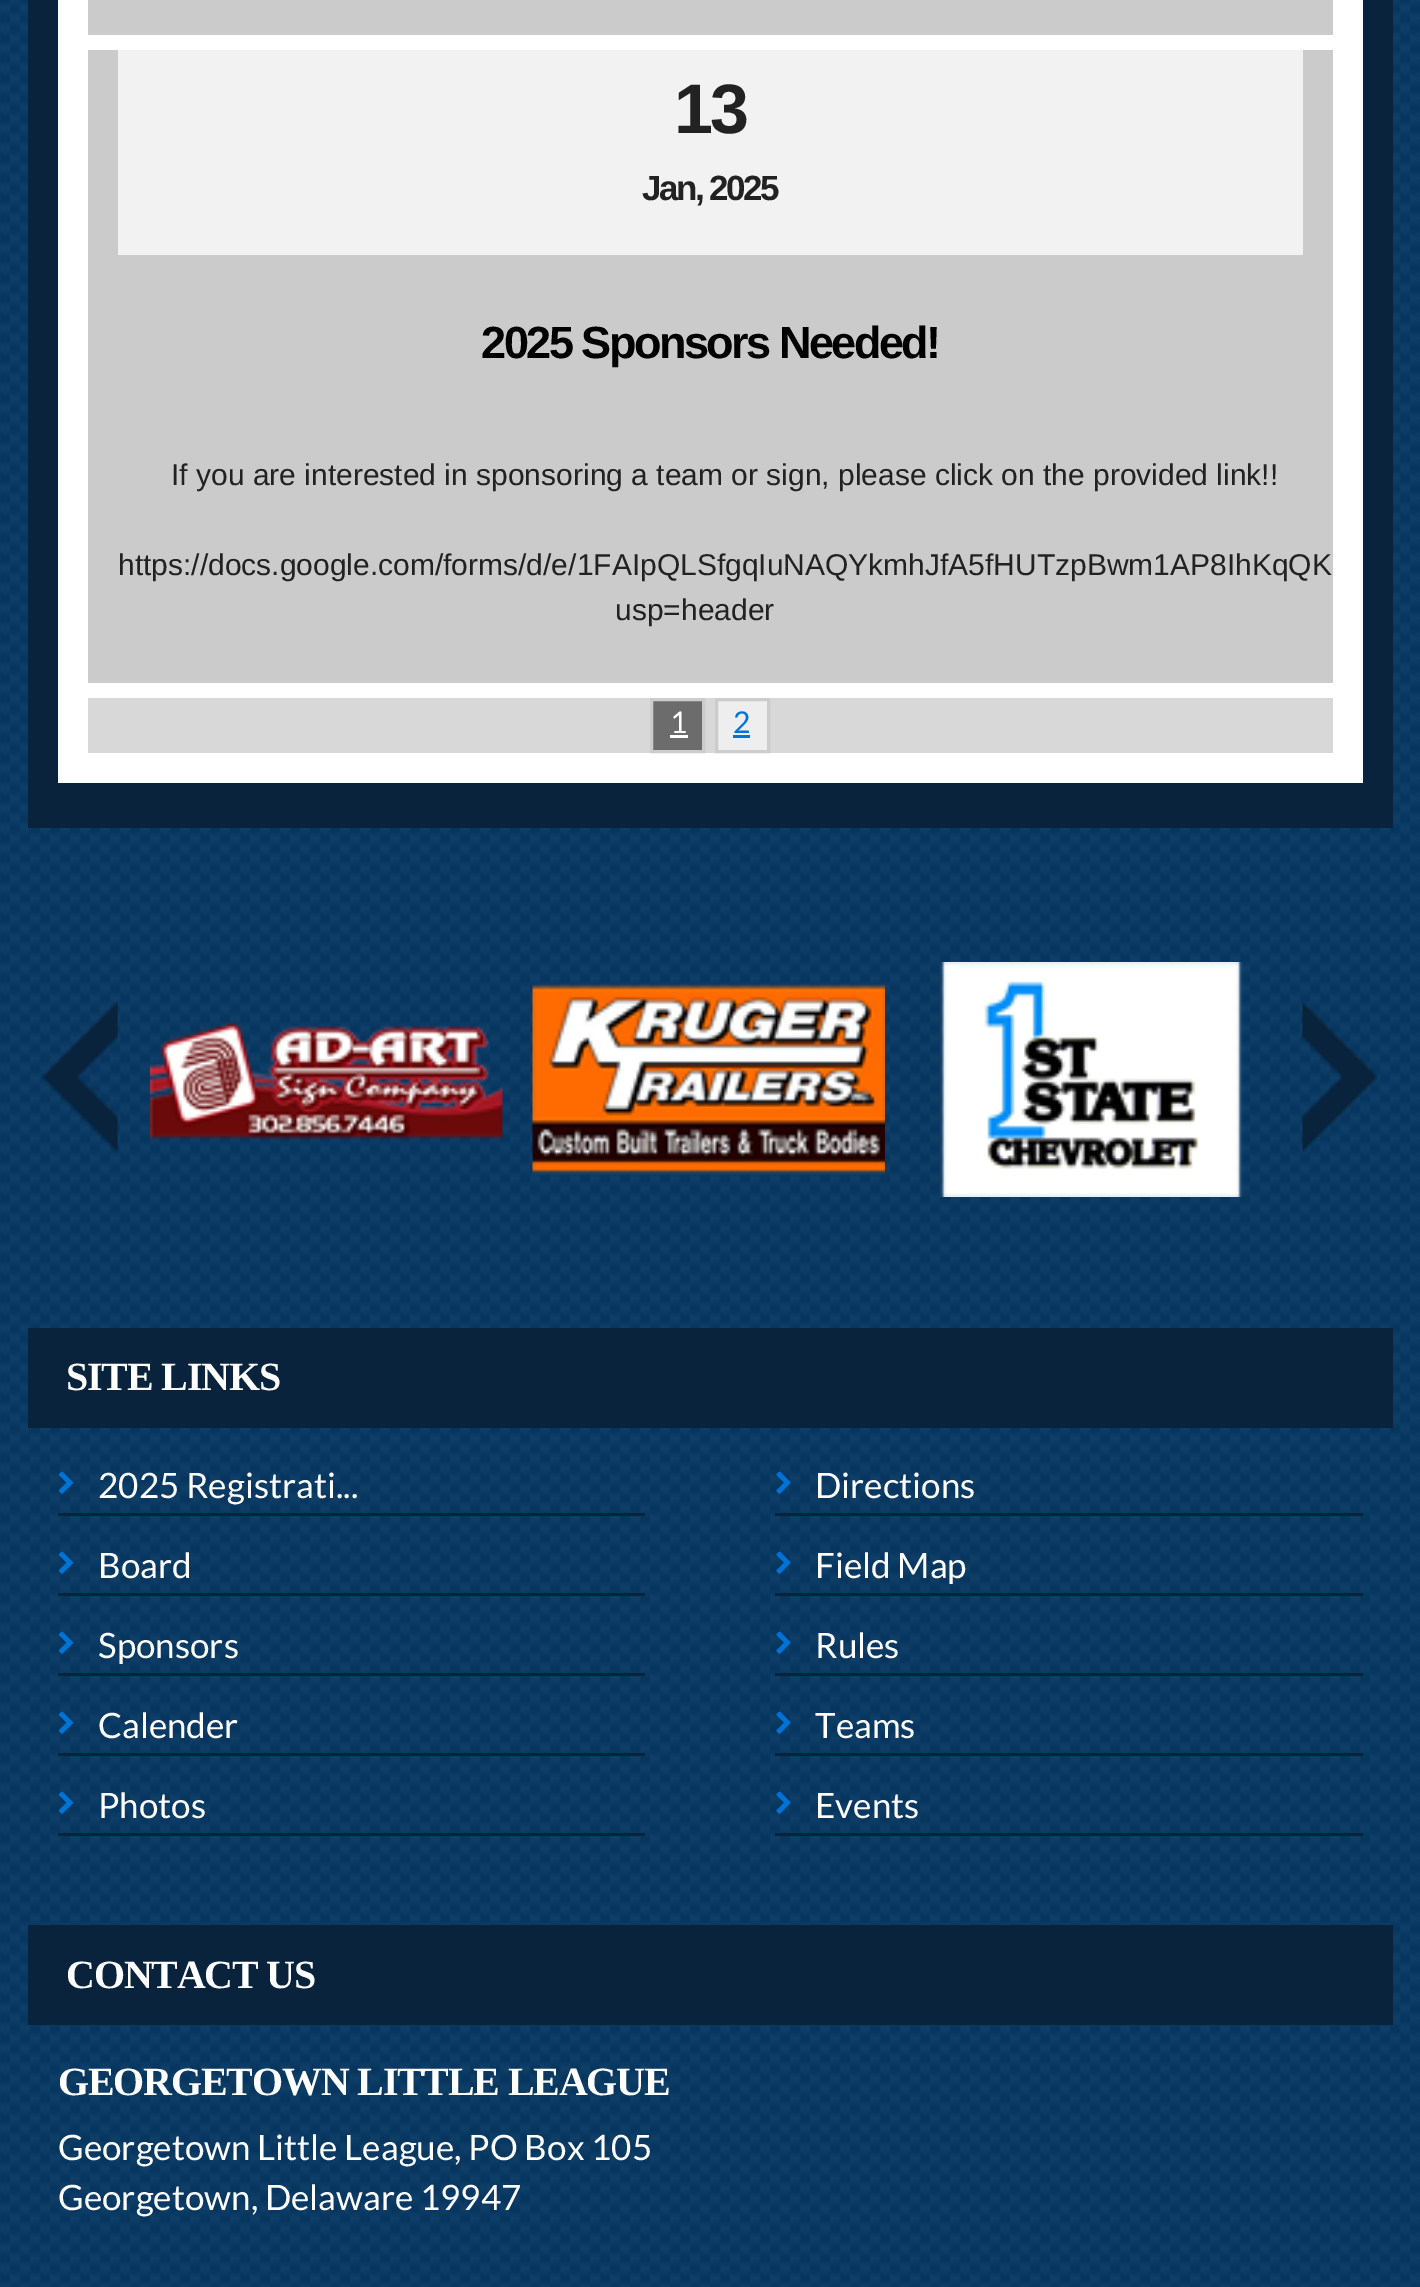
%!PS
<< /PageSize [1420 2287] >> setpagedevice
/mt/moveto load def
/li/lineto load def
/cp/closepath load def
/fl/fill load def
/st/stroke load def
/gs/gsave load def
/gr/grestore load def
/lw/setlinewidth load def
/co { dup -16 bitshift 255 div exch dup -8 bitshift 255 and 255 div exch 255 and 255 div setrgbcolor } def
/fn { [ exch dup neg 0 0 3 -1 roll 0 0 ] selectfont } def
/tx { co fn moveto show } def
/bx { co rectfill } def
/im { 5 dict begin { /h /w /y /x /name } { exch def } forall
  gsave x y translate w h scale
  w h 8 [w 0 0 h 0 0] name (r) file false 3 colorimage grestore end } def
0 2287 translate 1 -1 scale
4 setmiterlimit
0 0 1420 2287 16#FFFFFF bx
(media/1.raw) 0 0 1420 2287 im
28 0 1365 828 16#08233B bx
58 0 1305 783 16#FFFFFF bx
88 0 1245 35 16#CBCBCB bx
88 50 1245 633 16#CBCBCB bx
118 50 1185 205 16#F2F2F2 bx
88 698 1245 55 16#D8D8D8 bx
16#6C6C6C co
651.5 699.5 mt 703.5 699.5 li 703.5 751.5 li 651.5 751.5 li cp gs fl gr
16#CCCCCC co
3 lw
st
670 735 18 3 16#FFFFFF bx
16#EEEEEE co
716.5 699.5 mt 768.5 699.5 li 768.5 751.5 li 716.5 751.5 li cp gs fl gr
16#CCCCCC co
st
733 735 17 3 16#0073D8 bx
(media/2.raw) 42 1002 76 150 im
(media/3.raw) 150 1022 353 118 im
(media/4.raw) 532 984 353 191 im
(media/5.raw) 940 962 303 235 im
(media/6.raw) 1302 1002 76 150 im
28 1328 1365 100 16#08233B bx
58 1513 587 3 16#08233B bx
(media/7.raw) 58 1471 16 23 im
58 1593 587 3 16#08233B bx
(media/7.raw) 58 1551 16 23 im
58 1673 587 3 16#08233B bx
(media/7.raw) 58 1631 16 23 im
58 1753 587 3 16#08233B bx
(media/7.raw) 58 1711 16 23 im
58 1833 587 3 16#08233B bx
(media/7.raw) 58 1791 16 23 im
775 1513 588 3 16#08233B bx
(media/8.raw) 776 1471 15 23 im
775 1593 588 3 16#08233B bx
(media/8.raw) 776 1551 15 23 im
775 1673 588 3 16#08233B bx
(media/8.raw) 776 1631 15 23 im
775 1753 588 3 16#08233B bx
(media/8.raw) 776 1711 15 23 im
775 1833 588 3 16#08233B bx
(media/8.raw) 776 1791 15 23 im
28 1925 1365 100 16#08233B bx
/LiberationSans-Bold 70 fn
16#222222 co
674 133 mt -2.5 0 (13) ashow
/LiberationSans-Bold 35 fn
642 200 mt -2.5 0 (Jan, 2025) ashow
/LiberationSans-Bold 45 fn
16#000000 co
481 358 mt -2.5 0 (2025 Sponsors Needed!) ashow
(If you are interested in sponsoring a team or sign, please click on the provided link!!) 171 485 /LiberationSans-Regular 30 16#222222 tx
(https://docs.google.com/forms/d/e/1FAIpQLSfgqIuNAQYkmhJfA5fHUTzpBwm1AP8IhKqQK) 118 575 /LiberationSans-Regular 30 16#222222 tx
(usp=header) 615 620 /LiberationSans-Regular 30 16#222222 tx
(1) 670 733 /Lato-Regular 30 16#FFFFFF tx
(2) 733 733 /Lato-Regular 30 16#0073D8 tx
/LiberationSerif-Bold 40 fn
16#FFFFFF co
66 1390 mt -1.2 0 (SITE LINKS) ashow
(2025 Registrati...) 98 1498 /Lato-Regular 35 16#FFFFFF tx
(Board) 98 1578 /Lato-Regular 35 16#FFFFFF tx
(Sponsors) 98 1658 /Lato-Regular 35 16#FFFFFF tx
(Calender) 98 1738 /Lato-Regular 35 16#FFFFFF tx
(Photos) 98 1818 /Lato-Regular 35 16#FFFFFF tx
(Directions) 815 1498 /Lato-Regular 35 16#FFFFFF tx
(Field Map) 815 1578 /Lato-Regular 35 16#FFFFFF tx
(Rules) 815 1658 /Lato-Regular 35 16#FFFFFF tx
(Teams) 815 1738 /Lato-Regular 35 16#FFFFFF tx
(Events) 815 1818 /Lato-Regular 35 16#FFFFFF tx
/LiberationSerif-Bold 40 fn
66 1988 mt -1.2 0 (CONTACT US) ashow
58 2095 mt -1.2 0 (GEORGETOWN LITTLE LEAGUE) ashow
(Georgetown Little League, PO Box 105) 58 2160 /Lato-Regular 35 16#FFFFFF tx
(Georgetown, Delaware 19947) 58 2210 /Lato-Regular 35 16#FFFFFF tx
showpage
